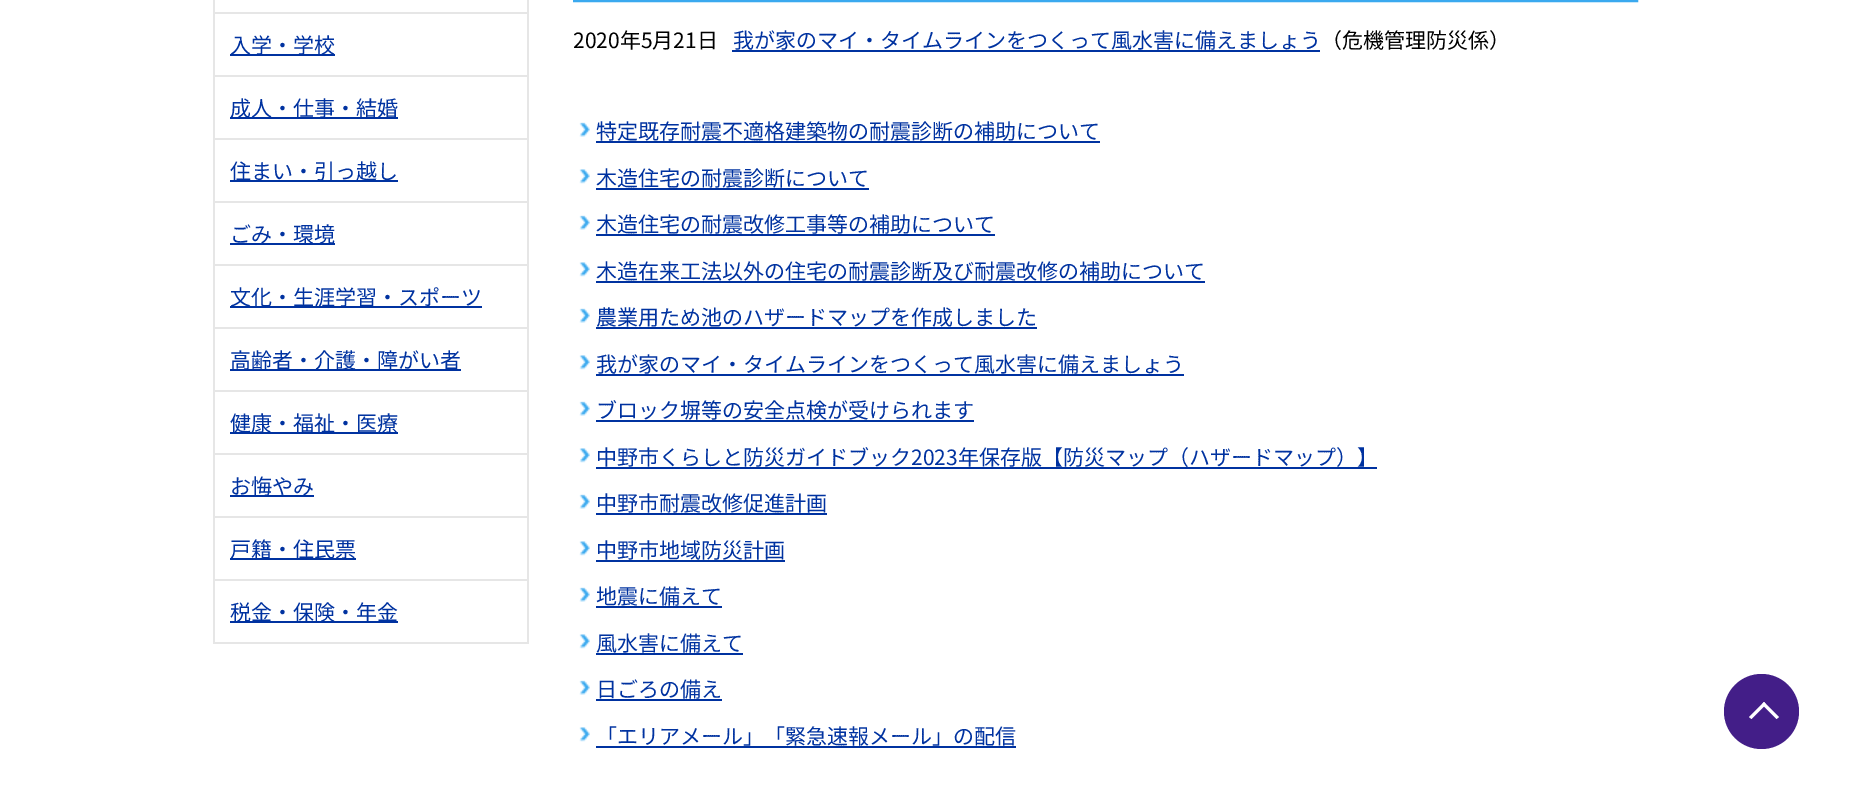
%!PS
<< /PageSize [1850 801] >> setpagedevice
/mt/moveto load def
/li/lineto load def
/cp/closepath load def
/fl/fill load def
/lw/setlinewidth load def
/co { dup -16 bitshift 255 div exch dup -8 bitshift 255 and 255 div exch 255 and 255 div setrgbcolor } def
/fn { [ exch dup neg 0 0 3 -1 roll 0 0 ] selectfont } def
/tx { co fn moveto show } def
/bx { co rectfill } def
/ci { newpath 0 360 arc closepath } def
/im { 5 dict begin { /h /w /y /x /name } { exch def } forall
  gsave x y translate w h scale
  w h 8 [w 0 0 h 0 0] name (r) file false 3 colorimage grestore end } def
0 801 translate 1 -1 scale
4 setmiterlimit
0 0 1850 801 16#FFFFFF bx
527 0 2 644 16#E6E6E6 bx
213 642 315 2 16#E6E6E6 bx
213 0 2 644 16#E6E6E6 bx
215 12 312 2 16#E6E6E6 bx
215 75 312 2 16#E6E6E6 bx
230 54 105 2 16#0032A0 bx
215 138 312 2 16#E6E6E6 bx
230 117 168 2 16#0032A0 bx
215 201 312 2 16#E6E6E6 bx
230 180 168 2 16#0032A0 bx
215 264 312 2 16#E6E6E6 bx
230 243 105 2 16#0032A0 bx
215 327 312 2 16#E6E6E6 bx
230 306 252 2 16#0032A0 bx
215 390 312 2 16#E6E6E6 bx
230 369 231 2 16#0032A0 bx
215 453 312 2 16#E6E6E6 bx
230 432 168 2 16#0032A0 bx
215 516 312 2 16#E6E6E6 bx
230 495 84 2 16#0032A0 bx
215 579 312 2 16#E6E6E6 bx
230 558 126 2 16#0032A0 bx
230 621 168 2 16#0032A0 bx
16#3AA9EF co
2 lw
574 -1 1063 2 rectstroke
732 50 588 2 16#0032A0 bx
(media/1.raw) 579 122 11 15 im
596 141 504 2 16#0032A0 bx
(media/2.raw) 579 169 11 15 im
596 188 273 2 16#0032A0 bx
(media/1.raw) 579 215 11 15 im
596 234 399 2 16#0032A0 bx
(media/2.raw) 579 262 11 15 im
596 281 609 2 16#0032A0 bx
(media/1.raw) 579 308 11 15 im
596 327 441 2 16#0032A0 bx
(media/2.raw) 579 355 11 15 im
596 374 588 2 16#0032A0 bx
(media/1.raw) 579 401 11 15 im
596 420 378 2 16#0032A0 bx
(media/2.raw) 579 448 11 15 im
596 467 781 2 16#0032A0 bx
(media/1.raw) 579 494 11 15 im
596 513 231 2 16#0032A0 bx
(media/2.raw) 579 541 11 15 im
596 560 189 2 16#0032A0 bx
(media/1.raw) 579 587 11 15 im
596 606 126 2 16#0032A0 bx
(media/2.raw) 579 634 11 15 im
596 653 147 2 16#0032A0 bx
(media/1.raw) 579 680 11 15 im
596 699 126 2 16#0032A0 bx
(media/2.raw) 579 727 11 15 im
596 746 420 2 16#0032A0 bx
16#431E88 co
1761.5 711.5 37.5 ci fl
16#FFFFFF co
1749 717 mt 1764 702 li 1766 704.5 li 1751.5 719 li cp fl
1762 704.5 mt 1764 702 li 1779 717 li 1776.5 719 li cp fl
(入学・学校) 230 53 /NotoSansJP-Regular 21 16#0032A0 tx
(成人・仕事・結婚) 230 116 /NotoSansJP-Regular 21 16#0032A0 tx
(住まい・引っ越し) 230 179 /NotoSansJP-Regular 21 16#0032A0 tx
(ごみ・環境) 230 242 /NotoSansJP-Regular 21 16#0032A0 tx
(文化・生涯学習・スポーツ) 230 305 /NotoSansJP-Regular 21 16#0032A0 tx
(高齢者・介護・障がい者) 230 368 /NotoSansJP-Regular 21 16#0032A0 tx
(健康・福祉・医療) 230 431 /NotoSansJP-Regular 21 16#0032A0 tx
(お悔やみ) 230 494 /NotoSansJP-Regular 21 16#0032A0 tx
(戸籍・住民票) 230 557 /NotoSansJP-Regular 21 16#0032A0 tx
(税金・保険・年金) 230 620 /NotoSansJP-Regular 21 16#0032A0 tx
(2020年5月21日) 573 48 /NotoSansJP-Regular 21 16#000000 tx
(我が家のマイ・タイムラインをつくって風水害に備えましょう) 733 48 /NotoSansJP-Regular 21 16#0032A0 tx
(（危機管理防災係）) 1321 48 /NotoSansJP-Regular 21 16#000000 tx
(特定既存耐震不適格建築物の耐震診断の補助について) 596 139 /NotoSansJP-Regular 21 16#0032A0 tx
(木造住宅の耐震診断について) 596 186 /NotoSansJP-Regular 21 16#0032A0 tx
(木造住宅の耐震改修工事等の補助について) 596 232 /NotoSansJP-Regular 21 16#0032A0 tx
(木造在来工法以外の住宅の耐震診断及び耐震改修の補助について) 596 279 /NotoSansJP-Regular 21 16#0032A0 tx
(農業用ため池のハザードマップを作成しました) 596 325 /NotoSansJP-Regular 21 16#0032A0 tx
(我が家のマイ・タイムラインをつくって風水害に備えましょう) 596 372 /NotoSansJP-Regular 21 16#0032A0 tx
(ブロック塀等の安全点検が受けられます) 596 418 /NotoSansJP-Regular 21 16#0032A0 tx
(中野市くらしと防災ガイドブック2023年保存版【防災マップ（ハザードマップ）】) 596 465 /NotoSansJP-Regular 21 16#0032A0 tx
(中野市耐震改修促進計画) 596 511 /NotoSansJP-Regular 21 16#0032A0 tx
(中野市地域防災計画) 596 558 /NotoSansJP-Regular 21 16#0032A0 tx
(地震に備えて) 596 604 /NotoSansJP-Regular 21 16#0032A0 tx
(風水害に備えて) 596 651 /NotoSansJP-Regular 21 16#0032A0 tx
(日ごろの備え) 596 697 /NotoSansJP-Regular 21 16#0032A0 tx
(「エリアメール」「緊急速報メール」の配信) 596 744 /NotoSansJP-Regular 21 16#0032A0 tx
showpage
